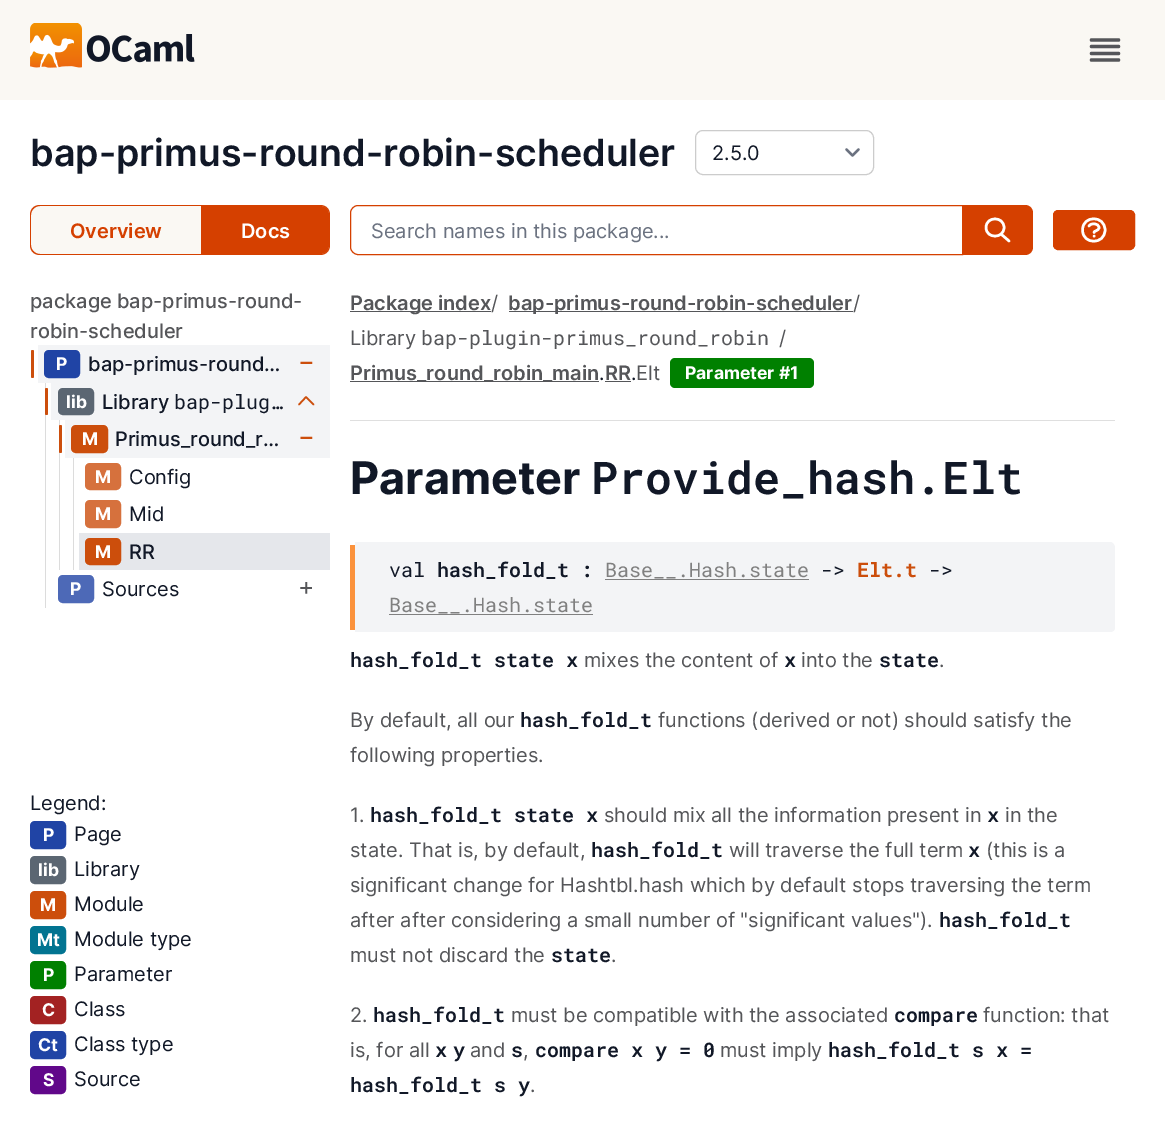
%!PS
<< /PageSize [1165 1132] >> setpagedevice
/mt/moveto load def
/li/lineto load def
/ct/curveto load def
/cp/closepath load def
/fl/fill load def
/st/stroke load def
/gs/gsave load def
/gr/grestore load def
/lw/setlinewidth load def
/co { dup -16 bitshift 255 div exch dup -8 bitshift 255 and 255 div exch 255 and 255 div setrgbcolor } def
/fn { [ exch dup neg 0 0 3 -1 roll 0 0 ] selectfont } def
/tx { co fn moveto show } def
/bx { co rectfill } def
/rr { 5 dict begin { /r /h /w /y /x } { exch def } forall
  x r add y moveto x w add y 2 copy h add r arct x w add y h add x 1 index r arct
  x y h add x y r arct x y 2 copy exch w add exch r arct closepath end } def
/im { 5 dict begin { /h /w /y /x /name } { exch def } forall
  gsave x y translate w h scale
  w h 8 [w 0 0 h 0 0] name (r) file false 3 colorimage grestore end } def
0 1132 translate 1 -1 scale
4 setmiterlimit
0 0 1165 1132 16#FAF8F3 bx
(media/1.raw) 30 23 165 45 im
16#555659 co
3.3 lw
1 setlinecap
1 setlinejoin
1091.5 40 mt 1118.5 40 li 1091.5 46.5 mt 1118.5 46.5 li 1091.5 53.5 mt 1118.5 53.5 li 1091.5 60 mt 1118.5 60 li st
0 100 1165 1032 16#FFFFFF bx
16#6B7280 co
2.2 lw
846.5 149.5 mt 852.5 155.5 li 858.5 149.5 li st
16#CCCCCC co
1 lw
0 setlinecap
0 setlinejoin
695.5 130.5 178 44 7.5 rr st
16#FAF8F3 co
40 206 mt 201 206 li 201 254 li 40 254 li 35 254 31 250 31 245 ct 31 215 li 31 210 35 206 40 206 ct cp fl
16#D54000 co
40 205 mt 201 205 li 201 255 li 40 255 li 34 255 30 251 30 245 ct 30 215 li 30 209 34 205 40 205 ct cp 40 206 mt 201 206 li 201 254 li 40 254 li 35 254 31 250 31 245 ct 31 215 li 31 210 35 206 40 206 ct cp eofill
201 206 mt 320 206 li 325 206 329 210 329 215 ct 329 245 li 329 250 325 254 320 254 ct 201 254 li cp fl
201 205 mt 320 205 li 326 205 330 209 330 215 ct 330 245 li 330 251 326 255 320 255 ct 201 255 li cp 201 206 mt 320 206 li 325 206 329 210 329 215 ct 329 245 li 329 250 325 254 320 254 ct 201 254 li cp eofill
358 205.5 mt 962.5 205.5 li 962.5 254.5 li 358 254.5 li 354 254.5 350.5 251 350.5 247 ct 350.5 213 li 350.5 209 354 205.5 358 205.5 ct cp st
963 205 mt 1025 205 li 1029.5 205 1033 208.5 1033 213 ct 1033 247 li 1033 251.5 1029.5 255 1025 255 ct 963 255 li cp fl
16#FFFFFF co
2.5 lw
1 setlinecap
1 setlinejoin
1009 241 mt 1001 234 li 1004 227.5 mt 1004 239 986 239 986 227.5 ct 986 216 1004 216 1004 227.5 ct cp st
16#D54000 co
1053.5 210.5 81 39 4.5 rr gs fl gr
1 lw
0 setlinecap
0 setlinejoin
st
16#FFFFFF co
2.5 lw
1 setlinecap
1 setlinejoin
1089 226 mt 1091 222.5 1098.5 223 1099 227.5 ct 1099 231 1094 230.5 1094 232.5 ct 1094 236 mt 1094 236 li 1105 230 mt 1105 245 1082.5 245 1082.5 230 ct 1082.5 215 1105 215 1105 230 ct cp st
38 345 292 38 16#F3F4F6 bx
16#CC4E0C co
31 350 3 28 1.5 rr fl
16#2044A5 co
45.5 351.5 33 25 3.5 rr gs fl gr
3 lw
0 setlinecap
0 setlinejoin
st
45 383 1 225 16#DCDCDC bx
51 383 279 37 16#F3F4F6 bx
16#CC4E0C co
45 388 3 27 1.5 rr fl
16#5B6672 co
59.5 389.5 33 24 3.5 rr gs fl gr
st
16#CC4E0C co
1.6 lw
1 setlinecap
1 setlinejoin
299 404.5 mt 306 397 li 313.5 404.5 li st
59 420 1 150 16#DCDCDC bx
65 420 265 38 16#F3F4F6 bx
16#CC4E0C co
59 425 3 28 1.5 rr fl
72.5 426.5 34 25 3.5 rr gs fl gr
3 lw
0 setlinecap
0 setlinejoin
st
73 458 1 112 16#DCDCDC bx
16#D6713D co
86.5 464.5 33 24 3.5 rr gs fl gr
st
86.5 501.5 33 25 3.5 rr gs fl gr
st
79 533 251 37 16#E5E7EB bx
16#CC4E0C co
86.5 539.5 33 24 3.5 rr gs fl gr
st
16#4D69B7 co
59.5 576.5 33 25 3.5 rr gs fl gr
st
16#2044A5 co
31.5 822.5 33 25 3.5 rr gs fl gr
st
16#5B6672 co
31.5 857.5 33 25 3.5 rr gs fl gr
st
16#CC4E0C co
31.5 892.5 33 25 3.5 rr gs fl gr
st
16#027491 co
31.5 927.5 33 25 3.5 rr gs fl gr
st
16#008000 co
31.5 962.5 33 25 3.5 rr gs fl gr
st
16#A32222 co
31.5 997.5 33 25 3.5 rr gs fl gr
st
16#2044A5 co
31.5 1032.5 33 25 3.5 rr gs fl gr
st
16#61088A co
31.5 1067.5 33 25 3.5 rr gs fl gr
st
350 420 765 1 16#DFDFDF bx
350 311 141 1 16#555659 bx
509 311 344 1 16#555659 bx
350 381 249 1 16#555659 bx
605 381 26 1 16#555659 bx
16#008000 co
670 358 144 30 5 rr fl
16#F3F4F6 co
355 542 mt 1110 542 li 1113 542 1115 545 1115 548 ct 1115 628 li 1115 630 1113 632 1110 632 ct 355 632 li cp fl
350 545 5 85 16#FB923C bx
605 579 204 1 16#808080 bx
389 614 204 1 16#808080 bx
(bap-primus-round-robin-scheduler) 30 166 /Inter-SemiBold 37.5 16#111827 tx
(2.5.0) 712 160 /Inter-Regular 20 16#111827 tx
(Overview) 70 238 /Inter-SemiBold 20 16#D54000 tx
(Docs) 241 238 /Inter-SemiBold 20 16#FFFFFF tx
(Search names in this package...) 371 238 /Inter-Regular 20 16#6B7280 tx
(package bap-primus-round-) 30 308 /Inter-Medium 20 16#555659 tx
(robin-scheduler) 30 338 /Inter-Medium 20 16#555659 tx
(P) 56 370 /Inter-Bold 17.5 16#FFFFFF tx
(bap-primus-round…) 88 371 /Inter-Medium 20 16#111827 tx
(−) 298 370 /Inter-Medium 25 16#CC4E0C tx
(lib) 66 408 /Inter-Bold 17.5 16#FFFFFF tx
(Library) 102 409 /Inter-Medium 20 16#111827 tx
(bap-plug…) 174 409 /RobotoMono-Regular 20 16#111827 tx
(M) 82 445 /Inter-Bold 17.5 16#FFFFFF tx
(Primus_round_r…) 115 446 /Inter-Medium 20 16#111827 tx
(−) 298 445 /Inter-Medium 25 16#CC4E0C tx
(M) 95 483 /Inter-Bold 17.5 16#FFFFFF tx
(Config) 129 484 /Inter-Regular 20 16#111827 tx
(M) 95 520 /Inter-Bold 17.5 16#FFFFFF tx
(Mid) 129 521 /Inter-Regular 20 16#111827 tx
(M) 95 558 /Inter-Bold 17.5 16#FFFFFF tx
(RR) 129 559 /Inter-Medium 20 16#111827 tx
(P) 70 595 /Inter-Bold 17.5 16#FFFFFF tx
(Sources) 102 596 /Inter-Regular 20 16#111827 tx
(+) 298 595 /Inter-Regular 25 16#555659 tx
(Legend:) 30 810 /Inter-Regular 20 16#111827 tx
(P) 43 841 /Inter-Bold 17.5 16#FFFFFF tx
(Page) 74 841 /Inter-Regular 20 16#111827 tx
(lib) 38 876 /Inter-Bold 17.5 16#FFFFFF tx
(Library) 74 876 /Inter-Regular 20 16#111827 tx
(M) 40 911 /Inter-Bold 17.5 16#FFFFFF tx
(Module) 74 911 /Inter-Regular 20 16#111827 tx
(Mt) 37 946 /Inter-Bold 17.5 16#FFFFFF tx
(Module type) 74 946 /Inter-Regular 20 16#111827 tx
(P) 43 981 /Inter-Bold 17.5 16#FFFFFF tx
(Parameter) 74 981 /Inter-Regular 20 16#111827 tx
(C) 42 1016 /Inter-Bold 17.5 16#FFFFFF tx
(Class) 74 1016 /Inter-Regular 20 16#111827 tx
(Ct) 38 1051 /Inter-Bold 17.5 16#FFFFFF tx
(Class type) 74 1051 /Inter-Regular 20 16#111827 tx
(S) 43 1086 /Inter-Bold 17.5 16#FFFFFF tx
(Source) 74 1086 /Inter-Regular 20 16#111827 tx
(Package index) 350 310 /Inter-SemiBold 20 16#555659 tx
(/) 491 310 /Inter-Regular 20 16#555659 tx
(bap-primus-round-robin-scheduler) 508 310 /Inter-SemiBold 20 16#555659 tx
(/) 853 310 /Inter-Regular 20 16#555659 tx
(Library) 350 345 /Inter-Regular 20 16#555659 tx
(bap-plugin-primus_round_robin) 421 345 /RobotoMono-Regular 20 16#555659 tx
(/) 779 345 /Inter-Regular 20 16#555659 tx
(Primus_round_robin_main) 350 380 /Inter-SemiBold 20 16#555659 tx
(.) 599 380 /Inter-Regular 20 16#111827 tx
(RR) 605 380 /Inter-SemiBold 20 16#555659 tx
(.) 631 380 /Inter-Regular 20 16#111827 tx
(Elt) 636 380 /Inter-Regular 20 16#555659 tx
(Parameter #1) 685 379 /Inter-Bold 17.5 16#FFFFFF tx
(Parameter) 350 494 /Inter-Bold 45 16#111827 tx
(Provide_hash.Elt) 591 494 /RobotoMono-SemiBold 45 16#111827 tx
(val) 389 577 /RobotoMono-Regular 20 16#111827 tx
(hash_fold_t :) 437 577 /RobotoMono-SemiBold 20 16#111827 tx
(Base__.Hash.state) 605 577 /RobotoMono-Regular 20 16#808080 tx
(->) 821 577 /RobotoMono-Regular 20 16#111827 tx
(Elt.t) 857 577 /RobotoMono-Bold 20 16#CC4E0C tx
(->) 929 577 /RobotoMono-Regular 20 16#111827 tx
(Base__.Hash.state) 389 612 /RobotoMono-Regular 20 16#808080 tx
(hash_fold_t state x) 350 667 /RobotoMono-SemiBold 20 16#111827 tx
(mixes the content of) 584 667 /Inter-Regular 20 16#555659 tx
(x) 784 667 /RobotoMono-SemiBold 20 16#111827 tx
(into the) 801 667 /Inter-Regular 20 16#555659 tx
(state) 879 667 /RobotoMono-SemiBold 20 16#111827 tx
(.) 939 667 /Inter-Regular 20 16#555659 tx
(By default, all our) 350 727 /Inter-Regular 20 16#555659 tx
(hash_fold_t) 520 727 /RobotoMono-SemiBold 20 16#111827 tx
(functions \(derived or not\) should satisfy the) 658 727 /Inter-Regular 20 16#555659 tx
(following properties.) 350 762 /Inter-Regular 20 16#555659 tx
(1.) 350 822 /Inter-Regular 20 16#555659 tx
(hash_fold_t state x) 370 822 /RobotoMono-SemiBold 20 16#111827 tx
(should mix all the information present in) 604 822 /Inter-Regular 20 16#555659 tx
(x) 987 822 /RobotoMono-SemiBold 20 16#111827 tx
(in the) 1005 822 /Inter-Regular 20 16#555659 tx
(state. That is, by default,) 350 857 /Inter-Regular 20 16#555659 tx
(hash_fold_t) 591 857 /RobotoMono-SemiBold 20 16#111827 tx
(will traverse the full term) 729 857 /Inter-Regular 20 16#555659 tx
(x) 968 857 /RobotoMono-SemiBold 20 16#111827 tx
(\(this is a) 986 857 /Inter-Regular 20 16#555659 tx
(significant change for Hashtbl.hash which by default stops traversing the term) 350 892 /Inter-Regular 20 16#555659 tx
(after after considering a small number of "significant values"\).) 350 927 /Inter-Regular 20 16#555659 tx
(hash_fold_t) 939 927 /RobotoMono-SemiBold 20 16#111827 tx
(must not discard the) 350 962 /Inter-Regular 20 16#555659 tx
(state) 551 962 /RobotoMono-SemiBold 20 16#111827 tx
(.) 611 962 /Inter-Regular 20 16#555659 tx
(2.) 350 1022 /Inter-Regular 20 16#555659 tx
(hash_fold_t) 373 1022 /RobotoMono-SemiBold 20 16#111827 tx
(must be compatible with the associated) 511 1022 /Inter-Regular 20 16#555659 tx
(compare) 894 1022 /RobotoMono-SemiBold 20 16#111827 tx
(function: that) 983 1022 /Inter-Regular 20 16#555659 tx
(is, for all) 350 1057 /Inter-Regular 20 16#555659 tx
(x) 435 1057 /RobotoMono-SemiBold 20 16#111827 tx
(y) 453 1057 /RobotoMono-SemiBold 20 16#111827 tx
(and) 470 1057 /Inter-Regular 20 16#555659 tx
(s) 511 1057 /RobotoMono-SemiBold 20 16#111827 tx
(,) 523 1057 /Inter-Regular 20 16#555659 tx
(compare x y = 0) 535 1057 /RobotoMono-SemiBold 20 16#111827 tx
(must imply) 720 1057 /Inter-Regular 20 16#555659 tx
(hash_fold_t s x =) 828 1057 /RobotoMono-SemiBold 20 16#111827 tx
(hash_fold_t s y) 350 1092 /RobotoMono-SemiBold 20 16#111827 tx
(.) 530 1092 /Inter-Regular 20 16#555659 tx
showpage
